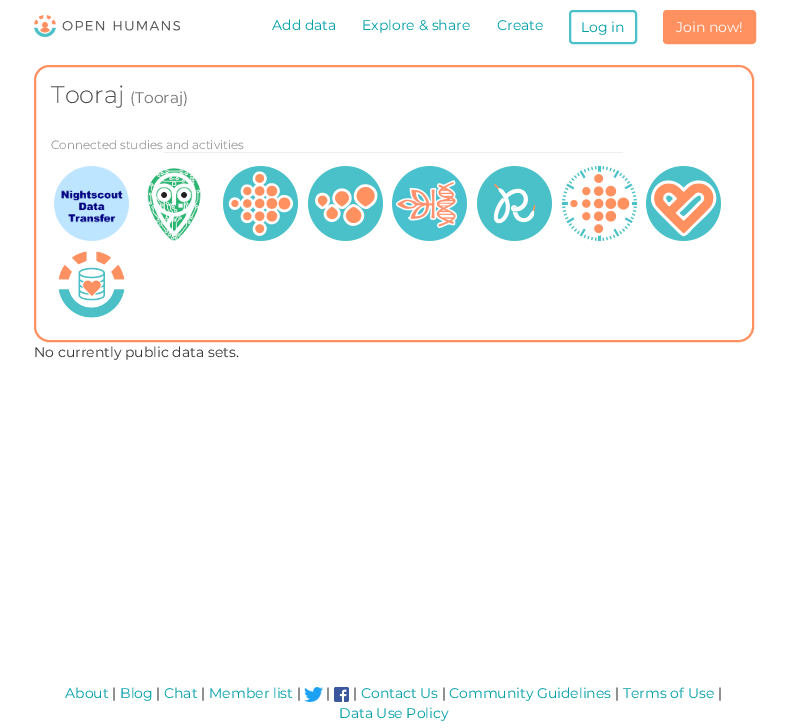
%!PS
<< /PageSize [787 728] >> setpagedevice
/fl/fill load def
/st/stroke load def
/gs/gsave load def
/gr/grestore load def
/lw/setlinewidth load def
/co { dup -16 bitshift 255 div exch dup -8 bitshift 255 and 255 div exch 255 and 255 div setrgbcolor } def
/fn { [ exch dup neg 0 0 3 -1 roll 0 0 ] selectfont } def
/tx { co fn moveto show } def
/bx { co rectfill } def
/rr { 5 dict begin { /r /h /w /y /x } { exch def } forall
  x r add y moveto x w add y 2 copy h add r arct x w add y h add x 1 index r arct
  x y h add x y r arct x y 2 copy exch w add exch r arct closepath end } def
/im { 5 dict begin { /h /w /y /x /name } { exch def } forall
  gsave x y translate w h scale
  w h 8 [w 0 0 h 0 0] name (r) file false 3 colorimage grestore end } def
0 728 translate 1 -1 scale
4 setmiterlimit
0 0 787 728 16#FFFFFF bx
(media/1.raw) 33 15 147 23 im
16#4AC1C8 co
2 lw
570 11 66 32 3 rr st
16#FF9161 co
663.5 10.5 92 33 3.5 rr gs fl gr
1 lw
st
2 lw
35 66 718 275 14 rr st
164 152 459 1 16#EEEEEE bx
(media/2.raw) 54 166 75 75 im
(media/3.raw) 147 168 54 73 im
(media/4.raw) 223 166 75 75 im
(media/5.raw) 308 166 75 75 im
(media/6.raw) 392 166 75 75 im
(media/7.raw) 477 166 75 75 im
(media/8.raw) 562 166 75 75 im
(media/9.raw) 646 166 75 75 im
(media/10.raw) 58 251 67 67 im
(media/11.raw) 304 687 19 15 im
(media/12.raw) 334 687 15 15 im
(Add data) 272 30 /Montserrat-Regular 14 16#009FA8 tx
(Explore & share) 362 30 /Montserrat-Regular 14 16#009FA8 tx
(Create) 497 30 /Montserrat-Regular 14 16#009FA8 tx
(Log in) 581 32 /Montserrat-Regular 14 16#009FA8 tx
(Join now!) 676 32 /Montserrat-Regular 14 16#FFFFFF tx
(Tooraj) 51 103 /Montserrat-Light 24 16#4D4D4D tx
(\(Tooraj\)) 130 103 /Montserrat-Regular 15.5 16#777777 tx
(Connected studies and activities) 51 149 /Montserrat-Light 12 16#777777 tx
(No currently public data sets.) 34 357 /Montserrat-Regular 14 16#333333 tx
(About) 65 698 /Montserrat-Regular 14 16#009FA8 tx
(|) 112 698 /Montserrat-Regular 14 16#333333 tx
(Blog) 120 698 /Montserrat-Regular 14 16#009FA8 tx
(|) 156 698 /Montserrat-Regular 14 16#333333 tx
(Chat) 164 698 /Montserrat-Regular 14 16#009FA8 tx
(|) 201 698 /Montserrat-Regular 14 16#333333 tx
(Member list) 209 698 /Montserrat-Regular 14 16#009FA8 tx
(|) 297 698 /Montserrat-Regular 14 16#333333 tx
(|) 326 698 /Montserrat-Regular 14 16#333333 tx
(|) 353 698 /Montserrat-Regular 14 16#333333 tx
(Contact Us) 361 698 /Montserrat-Regular 14 16#009FA8 tx
(|) 442 698 /Montserrat-Regular 14 16#333333 tx
(Community Guidelines) 449 698 /Montserrat-Regular 14 16#009FA8 tx
(|) 615 698 /Montserrat-Regular 14 16#333333 tx
(Terms of Use) 623 698 /Montserrat-Regular 14 16#009FA8 tx
(|) 718 698 /Montserrat-Regular 14 16#333333 tx
(Data Use Policy) 339 718 /Montserrat-Regular 14 16#009FA8 tx
showpage
